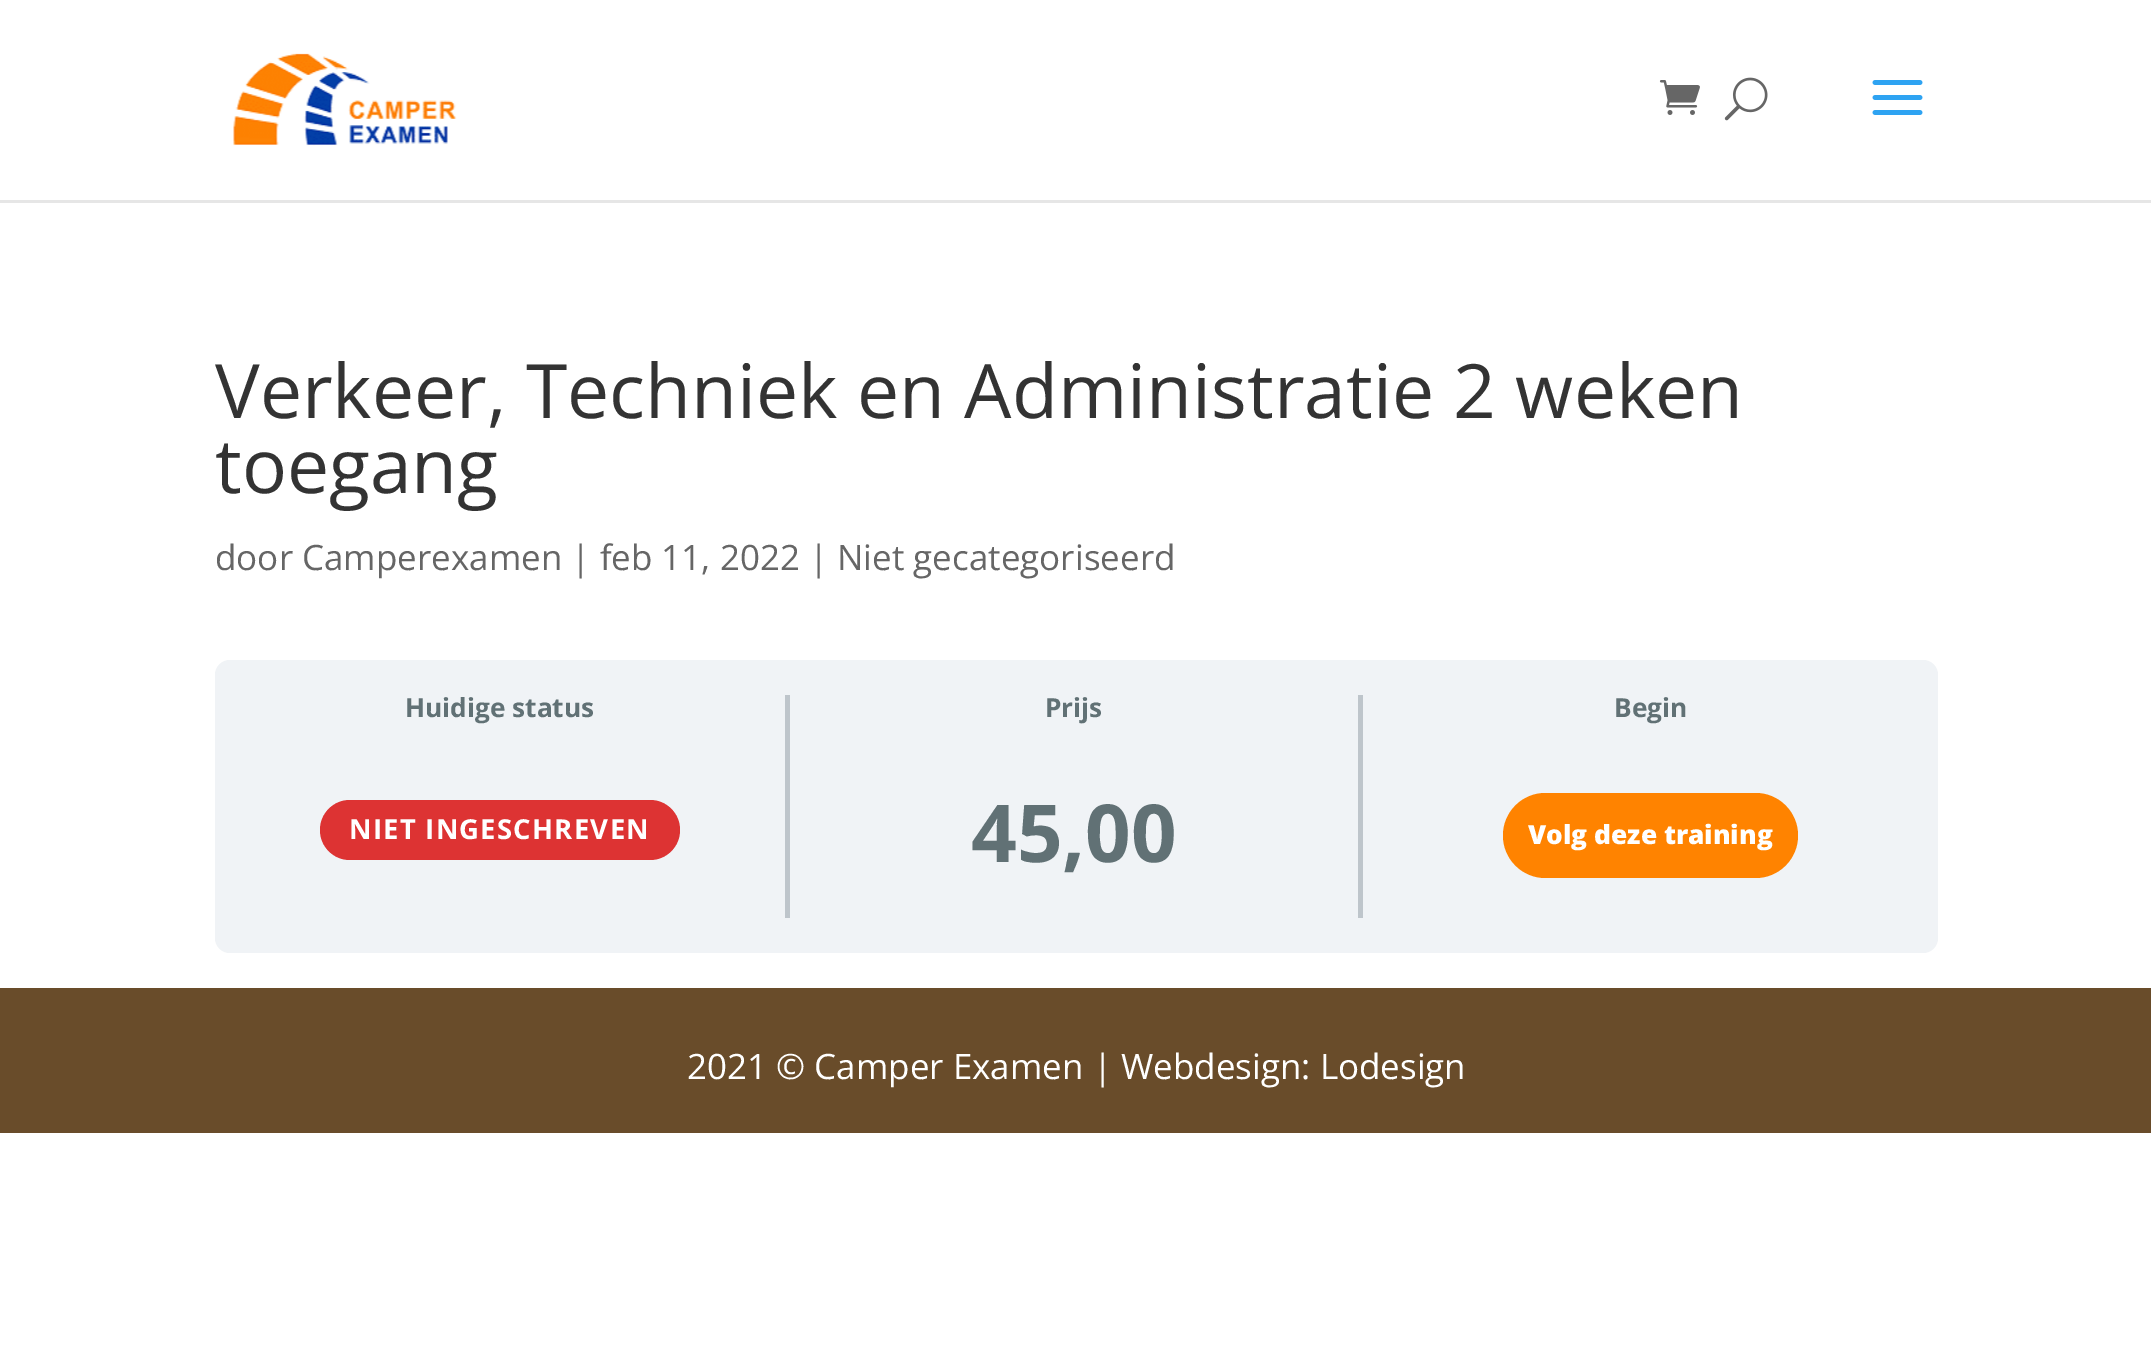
%!PS
<< /PageSize [2151 1372] >> setpagedevice
/mt/moveto load def
/li/lineto load def
/cp/closepath load def
/fl/fill load def
/co { dup -16 bitshift 255 div exch dup -8 bitshift 255 and 255 div exch 255 and 255 div setrgbcolor } def
/fn { [ exch dup neg 0 0 3 -1 roll 0 0 ] selectfont } def
/tx { co fn moveto show } def
/bx { co rectfill } def
/rr { 5 dict begin { /r /h /w /y /x } { exch def } forall
  x r add y moveto x w add y 2 copy h add r arct x w add y h add x 1 index r arct
  x y h add x y r arct x y 2 copy exch w add exch r arct closepath end } def
/im { 5 dict begin { /h /w /y /x /name } { exch def } forall
  gsave x y translate w h scale
  w h 8 [w 0 0 h 0 0] name (r) file false 3 colorimage grestore end } def
0 1372 translate 1 -1 scale
4 setmiterlimit
0 0 2151 1372 16#FFFFFF bx
16#E6E6E6 co
0 200 mt 0 203 li 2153 203 li 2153 3 li 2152 3 li 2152 200 li cp fl
(media/1.raw) 233 53 224 93 im
(media/2.raw) 1659 80 41 35 im
(media/3.raw) 1724 77 44 44 im
(media/4.raw) 1872 80 51 35 im
16#F0F3F6 co
215 660 1723 293 15 rr fl
785 695 5 223 16#BEC5CB bx
16#DD3333 co
320 800 360 60 30 rr fl
1358 695 5 223 16#BEC5CB bx
16#FF8300 co
1503 793 295 85 42.5 rr fl
0 988 2151 145 16#694C2A bx
(Verkeer, Techniek en Administratie 2 weken) 215 418 /OpenSans-Regular 75 16#333333 tx
(toegang) 215 493 /OpenSans-Regular 75 16#333333 tx
(door Camperexamen | feb 11, 2022 | Niet gecategoriseerd) 215 570 /OpenSans-Regular 35 16#666666 tx
(Huidige status) 405 717 /OpenSans-Bold 26.25 16#617175 tx
/OpenSans-Bold 27.5 fn
16#FFFFFF co
349 839 mt 1.25 0 (NIET INGESCHREVEN) ashow
(Prijs) 1045 717 /OpenSans-Bold 26.25 16#617175 tx
(45,00) 971 862 /OpenSans-Bold 80 16#617175 tx
(Begin) 1614 717 /OpenSans-Bold 26.25 16#617175 tx
(Volg deze training) 1528 844 /OpenSans-ExtraBold 26.25 16#FFFFFF tx
(2021 © Camper Examen | Webdesign: Lodesign) 687 1079 /OpenSans-Regular 35 16#FFFFFF tx
showpage
